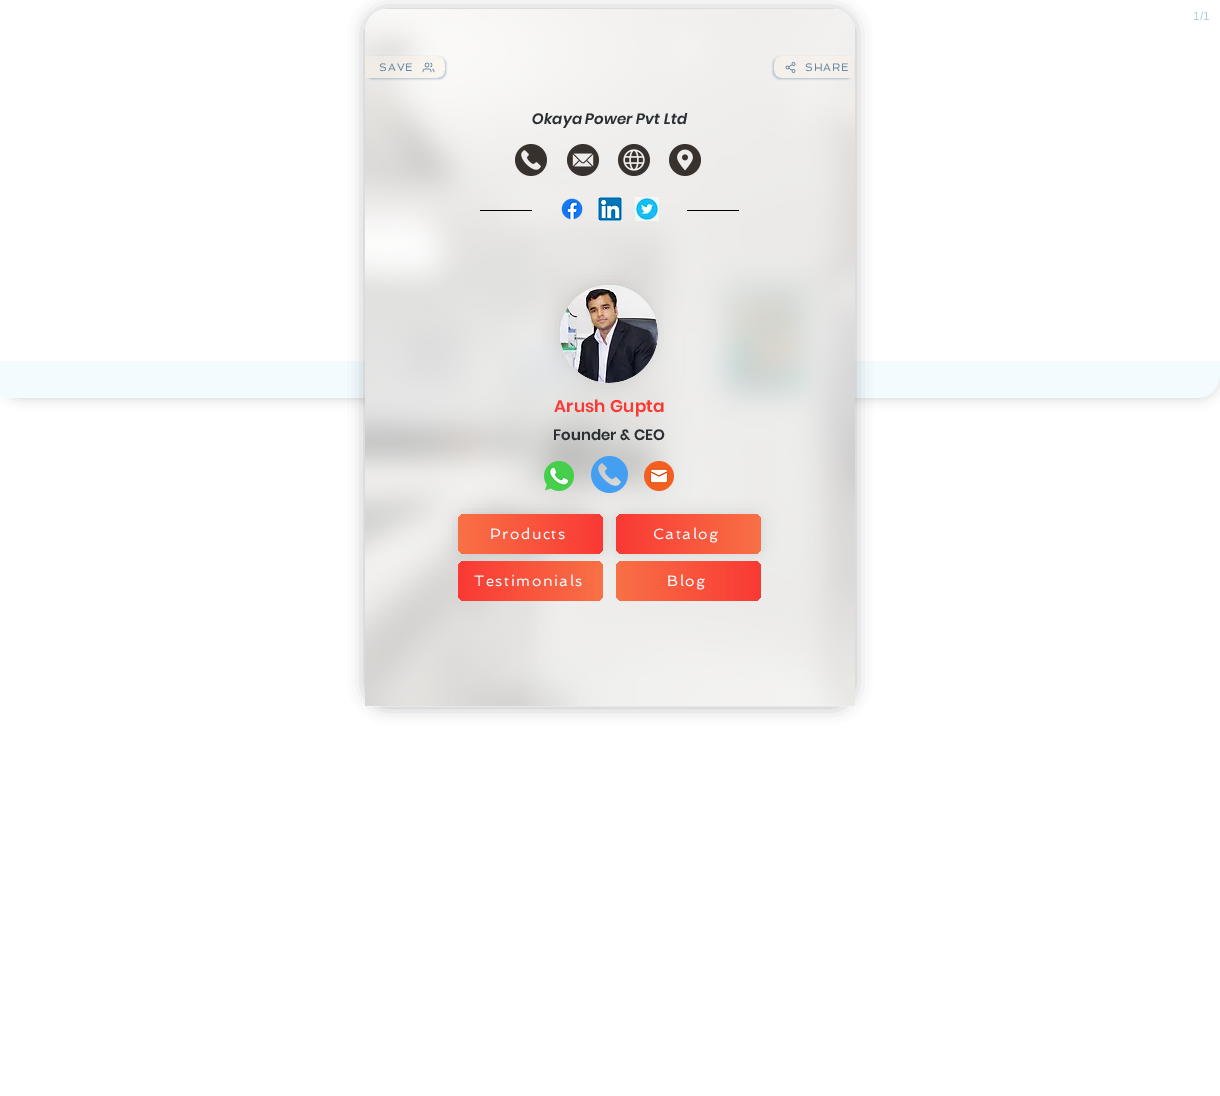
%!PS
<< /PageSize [1220 1096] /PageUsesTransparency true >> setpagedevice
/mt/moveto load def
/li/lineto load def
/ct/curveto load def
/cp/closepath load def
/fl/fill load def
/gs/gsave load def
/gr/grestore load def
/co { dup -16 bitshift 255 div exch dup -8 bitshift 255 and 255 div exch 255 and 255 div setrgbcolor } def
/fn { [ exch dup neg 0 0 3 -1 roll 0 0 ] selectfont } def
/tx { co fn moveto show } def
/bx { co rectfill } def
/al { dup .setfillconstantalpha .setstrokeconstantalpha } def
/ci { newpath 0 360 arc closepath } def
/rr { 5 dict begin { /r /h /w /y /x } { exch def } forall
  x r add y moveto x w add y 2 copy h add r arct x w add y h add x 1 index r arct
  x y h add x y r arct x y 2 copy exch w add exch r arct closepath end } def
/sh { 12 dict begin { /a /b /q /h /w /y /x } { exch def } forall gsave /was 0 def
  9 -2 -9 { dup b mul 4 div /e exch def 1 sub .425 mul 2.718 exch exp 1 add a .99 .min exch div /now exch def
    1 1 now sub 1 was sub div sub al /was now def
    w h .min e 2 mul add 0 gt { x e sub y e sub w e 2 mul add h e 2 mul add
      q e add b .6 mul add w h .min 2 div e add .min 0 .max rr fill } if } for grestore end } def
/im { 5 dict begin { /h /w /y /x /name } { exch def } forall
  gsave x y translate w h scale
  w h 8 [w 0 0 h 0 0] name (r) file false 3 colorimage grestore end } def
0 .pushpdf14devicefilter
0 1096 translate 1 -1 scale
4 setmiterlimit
0 0 1220 1096 16#FFFFFF bx
gs
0 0 mt 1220 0 li 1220 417 li 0 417 li cp 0 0 mt 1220 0 li 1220 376 li 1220 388 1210 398 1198 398 ct 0 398 li cp eoclip newpath
16#000000 co
0 0 1220 398 22 6 .19 sh
gr
gs
0 0 mt 1220 0 li 1220 376 li 1220 388 1210 398 1198 398 ct 0 398 li cp clip newpath
0 0 mt 1220 0 li 1220 376 li 1220 388 1210 398 1198 398 ct 0 398 li cp clip newpath
0 0 mt 1220 0 li 1220 376 li 1220 388 1210 398 1198 398 ct 0 398 li cp clip newpath
0.8 al
16#F0FAFF co
0 361 mt 1220 361 li 1220 377 li 1220 389 1210 399 1198 399 ct 0 399 li cp fl
gr
16#000000 co
365 10 490 698 22 8 .09 sh
16#FFFFFF co
387 9 mt 833 9 li 845 9 855 19 855 31 ct 855 707 li 365 707 li 365 31 li 365 19 375 9 387 9 ct cp fl
16#000000 co
365 10 490 697 22 8 .19 sh
16#F0FAFF co
387 9 mt 833 9 li 845 9 855 19 855 31 ct 855 706 li 365 706 li 365 31 li 365 19 375 9 387 9 ct cp fl
(media/1.raw) 365 9 490 697 im
gs
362 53 mt 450 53 li 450 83 li 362 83 li cp 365 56 mt 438 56 li 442 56 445 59 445 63 ct 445 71 li 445 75 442 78 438 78 ct 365 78 li cp eoclip newpath
16#6587A4 co
366 57 80 22 7 1 .49 sh
gr
0.49 al
16#F9F1E6 co
365 56 mt 438 56 li 442 56 445 59 445 63 ct 445 71 li 445 75 442 78 438 78 ct 365 78 li cp fl
1 al
(media/2.raw) 422 62 13 11 im
gs
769 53 mt 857 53 li 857 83 li 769 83 li cp 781 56 mt 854 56 li 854 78 li 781 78 li 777 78 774 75 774 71 ct 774 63 li 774 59 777 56 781 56 ct cp eoclip newpath
16#6587A4 co
773 57 80 22 7 1 .49 sh
gr
0.49 al
781 56 mt 854 56 li 854 78 li 781 78 li 777 78 774 75 774 71 ct 774 63 li 774 59 777 56 781 56 ct cp fl
1 al
(media/3.raw) 785 62 11 11 im
(media/4.raw) 515 144 32 32 im
(media/5.raw) 567 144 32 32 im
(media/6.raw) 618 144 32 32 im
(media/7.raw) 669 144 32 32 im
480 210 52 1 16#000000 bx
(media/8.raw) 561 198 22 22 im
(media/9.raw) 598 197 24 24 im
(media/10.raw) 635 197 24 24 im
687 210 52 1 16#000000 bx
560 285 98 98 49 8 .1 sh
16#FFFFFF co
609 334 49 ci fl
(media/11.raw) 560 285 98 98 im
16#000000 co
458 514 145 40 7 8 .1 sh
(media/12.raw) 544 461 30 30 im
gs 458 514 145 40 7 rr clip newpath
<< /ShadingType 2 /ColorSpace /DeviceRGB /Coords [458 534 603 534] /Extend [true true] /Function << /FunctionType 2 /Domain [0 1] /C0 [.973 .443 .275] /C1 [.98 .224 .204] /N 1 >> >> shfill gr
gs 458 561 145 40 7 rr clip newpath
<< /ShadingType 2 /ColorSpace /DeviceRGB /Coords [458 581 603 581] /Extend [true true] /Function << /FunctionType 2 /Domain [0 1] /C0 [.98 .224 .204] /C1 [.973 .443 .275] /N 1 >> >> shfill gr
616 514 145 40 7 8 .1 sh
(media/13.raw) 591 456 37 37 im
(media/14.raw) 644 461 30 30 im
gs 616 514 145 40 7 rr clip newpath
<< /ShadingType 2 /ColorSpace /DeviceRGB /Coords [616 534 761 534] /Extend [true true] /Function << /FunctionType 2 /Domain [0 1] /C0 [.98 .224 .204] /C1 [.973 .443 .275] /N 1 >> >> shfill gr
gs 616 561 145 40 7 rr clip newpath
<< /ShadingType 2 /ColorSpace /DeviceRGB /Coords [616 581 761 581] /Extend [true true] /Function << /FunctionType 2 /Domain [0 1] /C0 [.973 .443 .275] /C1 [.98 .224 .204] /N 1 >> >> shfill gr
(1/1) 1193 20 /LiberationSans-Regular 12 16#B6CDE1 tx
/Spinnaker-Regular 11 fn
16#6587A4 co
379 71 mt 1 0 (SAVE) ashow
805 71 mt 1 0 (SHARE) ashow
/Poppins-SemiBoldItalic 15 fn
16#292F33 co
532 124 mt .1 0 (Okaya Power Pvt Ltd) ashow
/Poppins-SemiBold 17 fn
16#FA3934 co
554 412 mt .25 0 (Arush Gupta) ashow
/Poppins-SemiBold 15 fn
16#292F33 co
553 440 mt .1 0 (Founder & CEO) ashow
/Spinnaker-Regular 15 fn
16#F0FAFF co
490 539 mt 1.5 0 (Products) ashow
653 539 mt 1.5 0 (Catalog) ashow
474 586 mt 1.5 0 (Testimonials) ashow
667 586 mt 1.5 0 (Blog) ashow
.poppdf14devicefilter showpage
